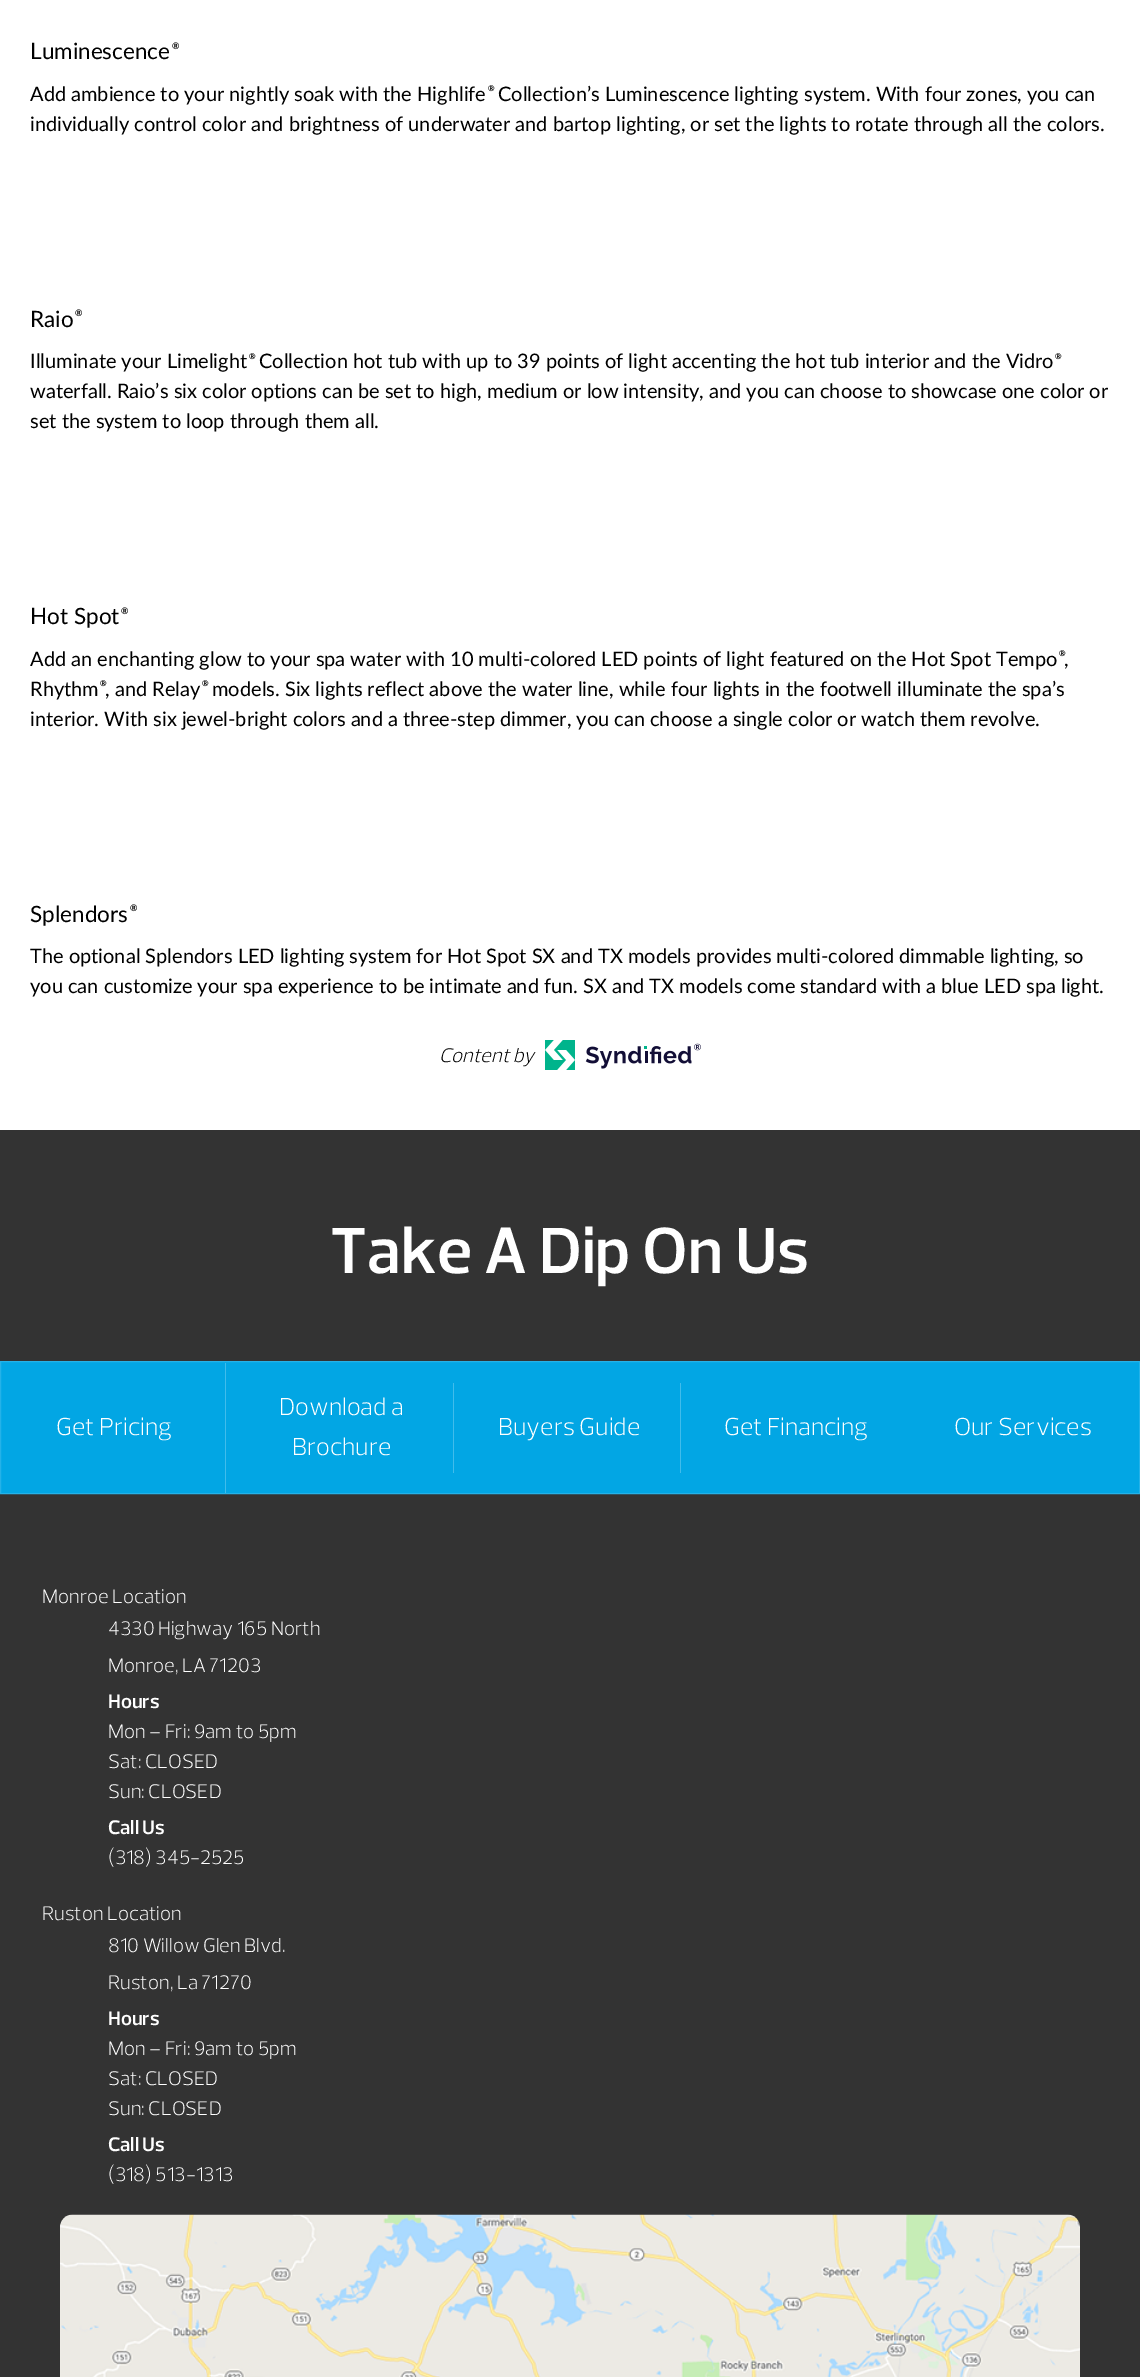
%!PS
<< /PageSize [1140 2377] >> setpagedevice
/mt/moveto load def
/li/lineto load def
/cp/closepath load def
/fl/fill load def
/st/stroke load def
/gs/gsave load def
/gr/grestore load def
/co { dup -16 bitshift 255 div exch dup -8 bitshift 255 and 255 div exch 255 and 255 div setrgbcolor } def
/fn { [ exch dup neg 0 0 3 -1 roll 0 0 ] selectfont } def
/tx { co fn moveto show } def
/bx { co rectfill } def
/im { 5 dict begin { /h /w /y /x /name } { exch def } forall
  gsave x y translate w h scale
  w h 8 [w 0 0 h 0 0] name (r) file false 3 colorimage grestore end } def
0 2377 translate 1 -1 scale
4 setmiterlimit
0 0 1140 2377 16#FFFFFF bx
(media/1.raw) 545 1040 156 30 im
0 1130 1140 1247 16#333333 bx
16#02A6E4 co
.5 1361.5 mt 1139.5 1361.5 li 1139.5 1493.5 li .5 1493.5 li cp gs fl gr
16#25B2E8 co
st
225 1363 1 130 16#41BCEB bx
453 1383 1 90 16#41BCEB bx
680 1383 1 90 16#41BCEB bx
(media/2.raw) 60 2214 1020 163 im
(Luminescence) 30 59 /Lato-Regular 22.5 16#000000 tx
(®) 172 49 /Lato-Bold 9 16#000000 tx
(Add ambience to your nightly soak with the Highlife) 30 101 /Lato-Regular 20 16#000000 tx
(®) 488 91 /Lato-Bold 8 16#000000 tx
(Collection’s Luminescence lighting system. With four zones, you can) 498 101 /Lato-Regular 20 16#000000 tx
(individually control color and brightness of underwater and bartop lighting, or set the lights to rotate through all the colors.) 30 131 /Lato-Regular 20 16#000000 tx
(Raio) 30 327 /Lato-Regular 22.5 16#000000 tx
(®) 75 316 /Lato-Bold 9 16#000000 tx
(Illuminate your Limelight) 30 368 /Lato-Regular 20 16#000000 tx
(®) 249 359 /Lato-Bold 8 16#000000 tx
(Collection hot tub with up to 39 points of light accenting the hot tub interior and the Vidro) 259 368 /Lato-Regular 20 16#000000 tx
(®) 1055 359 /Lato-Bold 8 16#000000 tx
(waterfall. Raio’s six color options can be set to high, medium or low intensity, and you can choose to showcase one color or) 30 398 /Lato-Regular 20 16#000000 tx
(set the system to loop through them all.) 30 428 /Lato-Regular 20 16#000000 tx
(Hot Spot) 30 624 /Lato-Regular 22.5 16#000000 tx
(®) 121 614 /Lato-Bold 9 16#000000 tx
(Add an enchanting glow to your spa water with 10 multi-colored LED points of light featured on the Hot Spot Tempo) 30 666 /Lato-Regular 20 16#000000 tx
(®) 1059 656 /Lato-Bold 8 16#000000 tx
(,) 1064 666 /Lato-Regular 20 16#000000 tx
(Rhythm) 30 696 /Lato-Regular 20 16#000000 tx
(, and Relay) 105 696 /Lato-Regular 20 16#000000 tx
(®) 100 686 /Lato-Bold 8 16#000000 tx
(®) 202 686 /Lato-Bold 8 16#000000 tx
(models. Six lights reflect above the water line, while four lights in the footwell illuminate the spa’s) 212 696 /Lato-Regular 20 16#000000 tx
(interior. With six jewel-bright colors and a three-step dimmer, you can choose a single color or watch them revolve.) 30 726 /Lato-Regular 20 16#000000 tx
(Splendors) 30 922 /Lato-Regular 22.5 16#000000 tx
(®) 130 911 /Lato-Bold 9 16#000000 tx
(The optional Splendors LED lighting system for Hot Spot SX and TX models provides multi-colored dimmable lighting, so) 30 963 /Lato-Regular 20 16#000000 tx
(you can customize your spa experience to be intimate and fun. SX and TX models come standard with a blue LED spa light.) 30 993 /Lato-Regular 20 16#000000 tx
(Content by) 439 1062 /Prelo-LightItalic 20 16#000000 tx
(Take A Dip On Us) 330 1273 /Prelo-SemiBold 66.25 16#FFFFFF tx
(Get Pricing) 56 1435 /Prelo-Light 25 16#FFFFFF tx
(Download a) 279 1415 /Prelo-Light 25 16#FFFFFF tx
(Brochure) 292 1455 /Prelo-Light 25 16#FFFFFF tx
(Buyers Guide) 498 1435 /Prelo-Light 25 16#FFFFFF tx
(Get Financing) 724 1435 /Prelo-Light 25 16#FFFFFF tx
(Our Services) 954 1435 /Prelo-Light 25 16#FFFFFF tx
(Monroe Location) 42 1603 /Prelo-Light 20 16#FFFFFF tx
(4330 Highway 165 North) 108 1635 /Prelo-Light 20 16#FFFFFF tx
(Monroe, LA 71203) 108 1672 /Prelo-Light 20 16#FFFFFF tx
(Hours) 108 1708 /Prelo-SemiBold 20 16#FFFFFF tx
(Mon – Fri: 9am to 5pm) 108 1738 /Prelo-Light 20 16#FFFFFF tx
(Sat: CLOSED) 108 1768 /Prelo-Light 20 16#FFFFFF tx
(Sun: CLOSED) 108 1798 /Prelo-Light 20 16#FFFFFF tx
(Call Us) 108 1834 /Prelo-SemiBold 20 16#FFFFFF tx
(\(318\) 345-2525) 108 1864 /Prelo-Light 20 16#FFFFFF tx
(Ruston Location) 42 1920 /Prelo-Light 20 16#FFFFFF tx
(810 Willow Glen Blvd.) 108 1952 /Prelo-Light 20 16#FFFFFF tx
(Ruston, La 71270) 108 1989 /Prelo-Light 20 16#FFFFFF tx
(Hours) 108 2025 /Prelo-SemiBold 20 16#FFFFFF tx
(Mon – Fri: 9am to 5pm) 108 2055 /Prelo-Light 20 16#FFFFFF tx
(Sat: CLOSED) 108 2085 /Prelo-Light 20 16#FFFFFF tx
(Sun: CLOSED) 108 2115 /Prelo-Light 20 16#FFFFFF tx
(Call Us) 108 2151 /Prelo-SemiBold 20 16#FFFFFF tx
(\(318\) 513-1313) 108 2181 /Prelo-Light 20 16#FFFFFF tx
showpage
